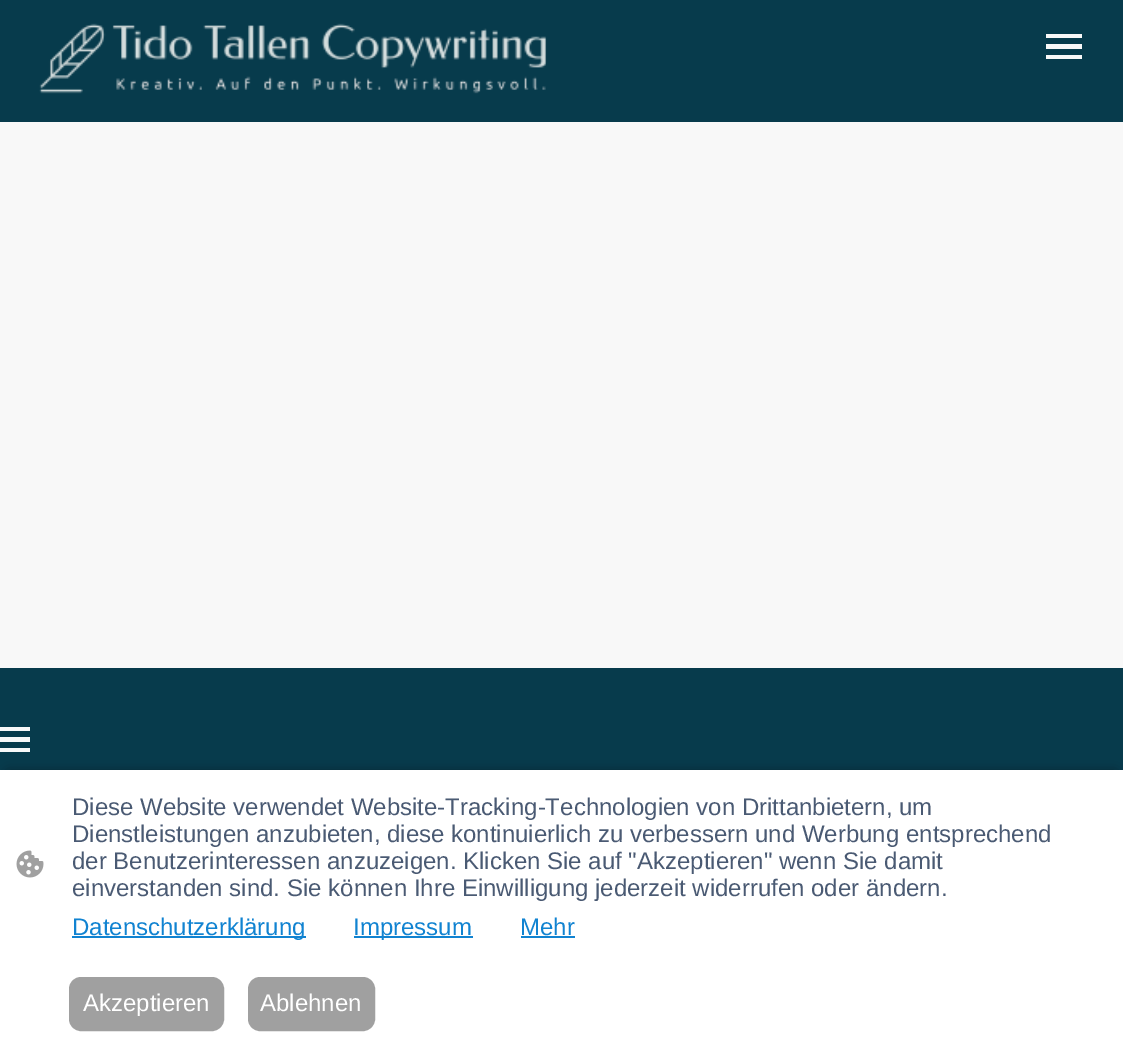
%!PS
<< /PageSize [1123 1042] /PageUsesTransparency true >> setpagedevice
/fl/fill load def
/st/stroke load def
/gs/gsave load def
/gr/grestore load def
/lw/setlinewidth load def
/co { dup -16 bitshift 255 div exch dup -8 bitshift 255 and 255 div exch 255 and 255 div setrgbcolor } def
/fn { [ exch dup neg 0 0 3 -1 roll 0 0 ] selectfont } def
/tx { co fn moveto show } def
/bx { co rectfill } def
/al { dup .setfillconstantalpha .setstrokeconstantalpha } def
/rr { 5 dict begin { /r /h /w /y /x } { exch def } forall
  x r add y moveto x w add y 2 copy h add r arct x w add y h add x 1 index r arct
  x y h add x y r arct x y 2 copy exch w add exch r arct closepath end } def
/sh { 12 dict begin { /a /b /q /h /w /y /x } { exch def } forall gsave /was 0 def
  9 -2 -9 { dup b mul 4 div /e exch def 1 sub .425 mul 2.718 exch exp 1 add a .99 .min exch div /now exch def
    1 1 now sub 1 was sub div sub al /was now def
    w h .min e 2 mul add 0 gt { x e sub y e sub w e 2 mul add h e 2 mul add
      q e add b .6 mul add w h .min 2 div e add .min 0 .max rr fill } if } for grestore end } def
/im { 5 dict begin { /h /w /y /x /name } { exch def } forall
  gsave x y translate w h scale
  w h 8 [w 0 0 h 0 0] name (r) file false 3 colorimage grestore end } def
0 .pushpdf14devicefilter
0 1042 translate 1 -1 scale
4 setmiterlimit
0 0 1123 1042 16#F8F8F8 bx
0 0 1123 122 16#073B4C bx
(media/1.raw) 39 23 508 71 im
1046 34 36 4 16#F8F8F8 bx
1046 44 36 5 16#F8F8F8 bx
1046 55 36 4 16#F8F8F8 bx
0 668 1123 102 16#073B4C bx
0 727 30 4 16#F8F8F8 bx
0 737 30 5 16#F8F8F8 bx
0 748 30 4 16#F8F8F8 bx
16#000000 co
9 774 1106 255 0 6 .63 sh
0 770 1123 272 16#FFFFFF bx
(media/2.raw) 16 850 28 28 im
72 936 234 2 16#1183D1 bx
354 936 119 2 16#1183D1 bx
521 936 54 2 16#1183D1 bx
16#A0A0A0 co
70 978 153 52 11 rr gs fl gr
2 lw
st
249 978 125 52 11 rr gs fl gr
st
(Diese Website verwendet Website-Tracking-Technologien von Drittanbietern, um) 72 815 /LiberationSans-Regular 24 16#4A5A73 tx
(Dienstleistungen anzubieten, diese kontinuierlich zu verbessern und Werbung entsprechend) 72 842 /LiberationSans-Regular 24 16#4A5A73 tx
(der Benutzerinteressen anzuzeigen. Klicken Sie auf "Akzeptieren" wenn Sie damit) 72 869 /LiberationSans-Regular 24 16#4A5A73 tx
(einverstanden sind. Sie können Ihre Einwilligung jederzeit widerrufen oder ändern.) 72 896 /LiberationSans-Regular 24 16#4A5A73 tx
(Datenschutzerklärung) 72 935 /LiberationSans-Regular 24 16#1183D1 tx
(Impressum) 353 935 /LiberationSans-Regular 24 16#1183D1 tx
(Mehr) 520 935 /LiberationSans-Regular 24 16#1183D1 tx
(Akzeptieren) 83 1011 /LiberationSans-Regular 24 16#FFFFFF tx
(Ablehnen) 260 1011 /LiberationSans-Regular 24 16#FFFFFF tx
.poppdf14devicefilter showpage
